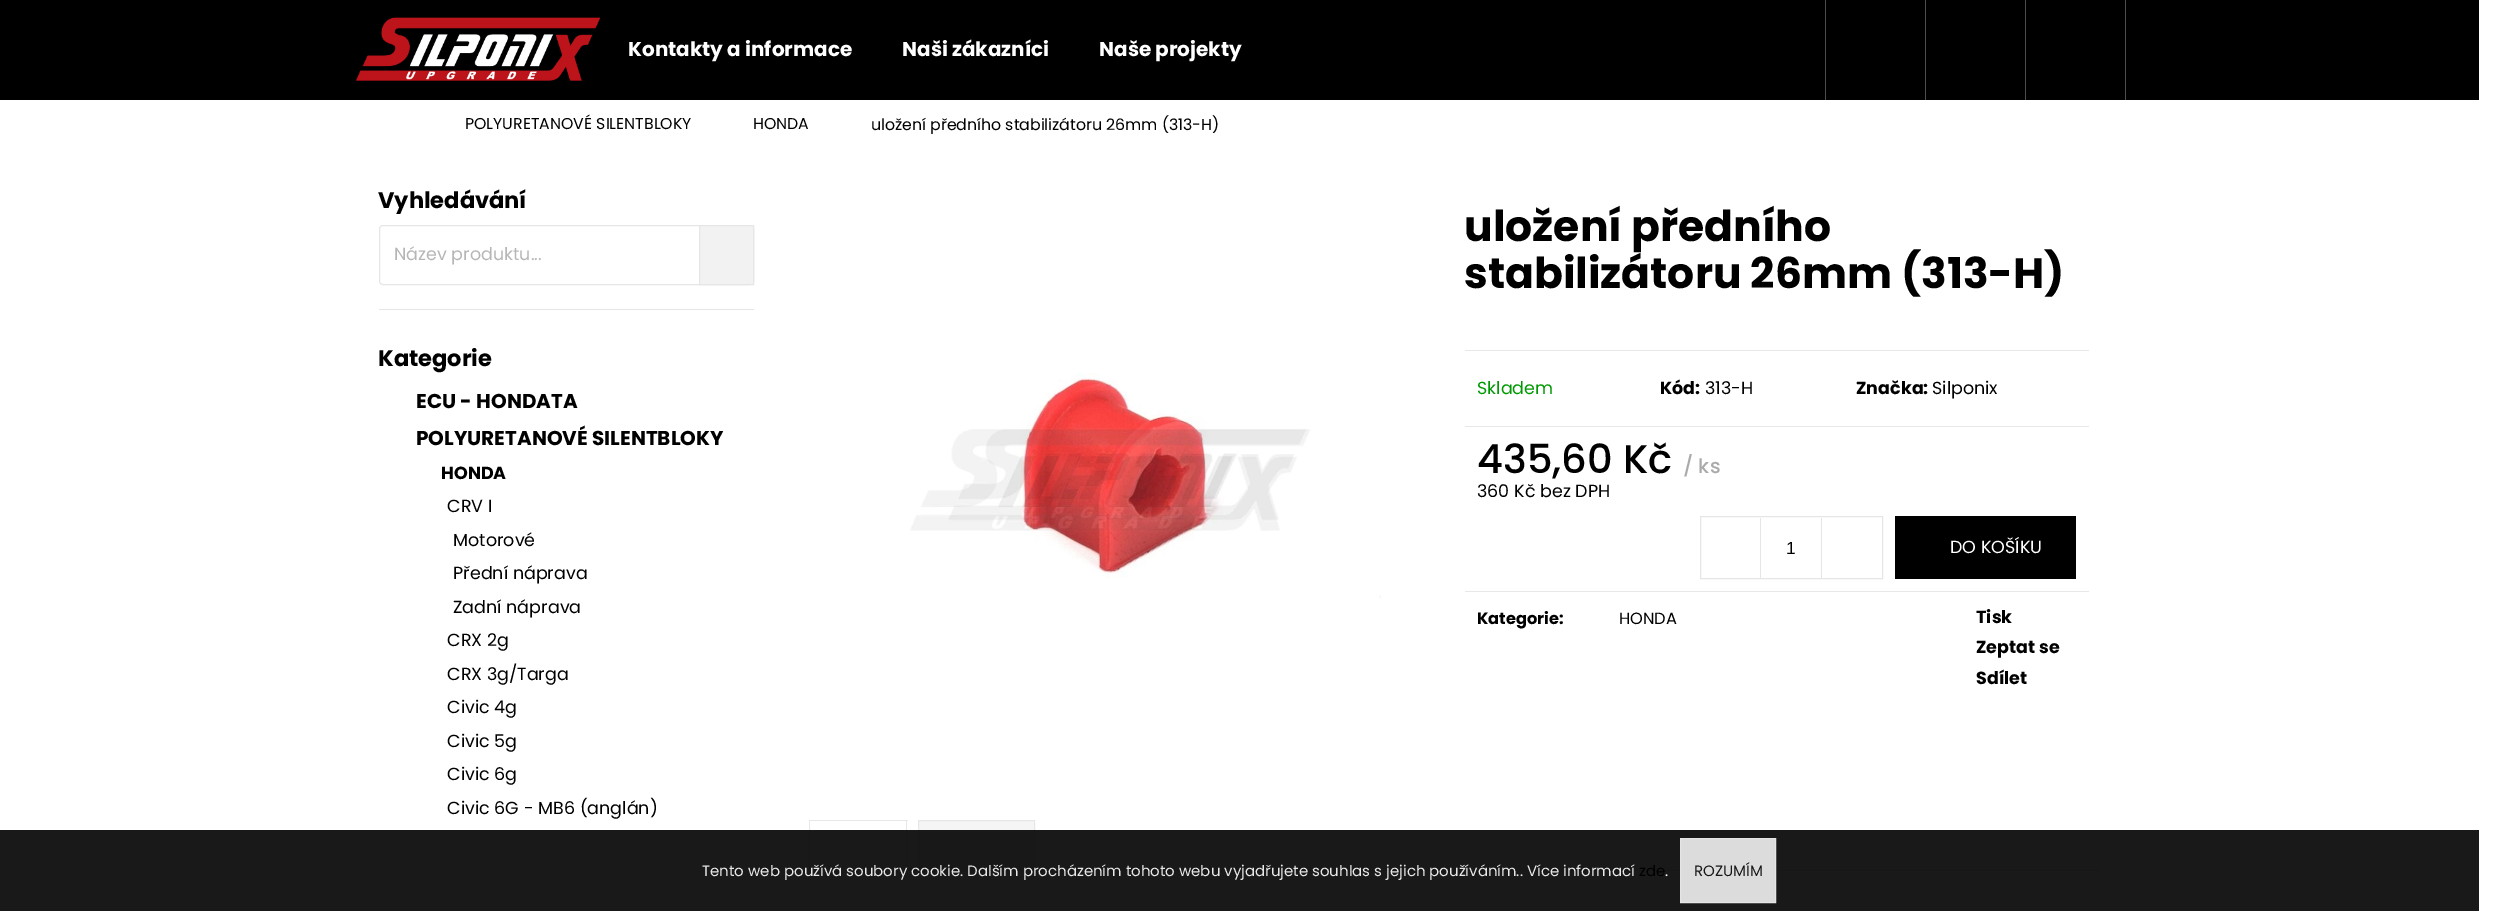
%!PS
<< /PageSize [2497 911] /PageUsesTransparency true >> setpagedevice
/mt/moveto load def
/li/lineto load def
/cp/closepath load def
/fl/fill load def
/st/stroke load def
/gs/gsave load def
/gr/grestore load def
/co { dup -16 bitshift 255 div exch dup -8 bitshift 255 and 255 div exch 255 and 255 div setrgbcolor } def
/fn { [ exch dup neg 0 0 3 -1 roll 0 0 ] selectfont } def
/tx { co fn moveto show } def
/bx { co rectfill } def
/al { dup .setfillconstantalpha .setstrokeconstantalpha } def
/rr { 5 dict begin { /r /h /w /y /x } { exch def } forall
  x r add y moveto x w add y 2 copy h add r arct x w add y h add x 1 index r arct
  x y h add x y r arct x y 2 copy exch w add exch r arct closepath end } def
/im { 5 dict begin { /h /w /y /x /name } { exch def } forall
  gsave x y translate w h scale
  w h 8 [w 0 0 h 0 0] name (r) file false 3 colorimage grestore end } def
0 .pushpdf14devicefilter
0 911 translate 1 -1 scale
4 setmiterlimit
0 0 2497 911 16#FFFFFF bx
0 0 2479 100 16#000000 bx
(media/1.raw) 355 17 246 64 im
2125 0 1 100 16#4D4D4D bx
1825 0 1 100 16#4D4D4D bx
1925 0 1 100 16#4D4D4D bx
2025 0 1 100 16#4D4D4D bx
16#E6E6E6 co
379.5 225.5 374 59 3.5 rr st
16#F2F2F2 co
699.5 225.5 mt 753.5 225.5 li 753.5 284.5 li 699.5 284.5 li cp gs fl gr
16#E6E6E6 co
st
379 309 375 1 16#E6E6E6 bx
(media/2.raw) 910 373 471 225 im
1465 350 624 1 16#E7E7E7 bx
1465 426 624 1 16#E7E7E7 bx
1465 591 624 1 16#E7E7E7 bx
16#E6E6E6 co
1700.5 516.5 182 62 rectstroke
1760 518 1 60 16#E6E6E6 bx
1821 518 1 60 16#E6E6E6 bx
1895 516 181 63 16#000000 bx
804 870 1297 1 16#E7E7E7 bx
809 820 99 1 16#E7E7E7 bx
906 820 1 51 16#E7E7E7 bx
809 870 99 1 16#FFFFFF bx
809 820 1 51 16#E7E7E7 bx
16#F5F5F5 co
918.5 820.5 mt 1034.5 820.5 li 1034.5 870.5 li 918.5 870.5 li cp gs fl gr
16#E7E7E7 co
st
0.9 al
0 830 2479 81 16#000000 bx
1 al
16#DCDCDC co
1680.5 838.5 mt 1775.5 838.5 li 1775.5 902.5 li 1680.5 902.5 li cp gs fl gr
16#E5E5E5 co
st
(Kontakty a informace) 628 56 /Poppins-Bold 20 16#FFFFFF tx
(Naši zákazníci) 902 56 /Poppins-Bold 20 16#FFFFFF tx
(Naše projekty) 1099 56 /Poppins-Bold 20 16#FFFFFF tx
(POLYURETANOVÉ SILENTBLOKY) 465 129 /Poppins-Regular 15.75 16#000000 tx
(HONDA) 753 129 /Poppins-Regular 15.75 16#000000 tx
(uložení předního stabilizátoru 26mm \(313-H\)) 871 130 /Poppins-Regular 15.75 16#000000 tx
(Vyhledávání) 378 208 /Poppins-Bold 22.5 16#000000 tx
(Název produktu...) 394 260 /Poppins-Regular 17.5 16#B6B6B6 tx
(Kategorie) 378 366 /Poppins-Bold 22.5 16#000000 tx
(ECU - HONDATA) 416 408 /Poppins-Bold 20 16#000000 tx
(POLYURETANOVÉ SILENTBLOKY) 416 445 /Poppins-Bold 20 16#000000 tx
(HONDA) 441 479 /Poppins-Bold 17.5 16#000000 tx
(CRV I) 447 512 /Poppins-Regular 17.5 16#000000 tx
(Motorové) 453 546 /Poppins-Regular 17.5 16#000000 tx
(Přední náprava) 453 579 /Poppins-Regular 17.5 16#000000 tx
(Zadní náprava) 453 613 /Poppins-Regular 17.5 16#000000 tx
(CRX 2g) 447 646 /Poppins-Regular 17.5 16#000000 tx
(CRX 3g/Targa) 447 680 /Poppins-Regular 17.5 16#000000 tx
(Civic 4g) 447 713 /Poppins-Regular 17.5 16#000000 tx
(Civic 5g) 447 747 /Poppins-Regular 17.5 16#000000 tx
(Civic 6g) 447 780 /Poppins-Regular 17.5 16#000000 tx
(Civic 6G - MB6 \(anglán\)) 447 814 /Poppins-Regular 17.5 16#000000 tx
(uložení předního) 1464 241 /Poppins-Bold 42.5 16#000000 tx
(stabilizátoru 26mm \(313-H\)) 1464 288 /Poppins-Bold 42.5 16#000000 tx
(Skladem) 1477 394 /Poppins-Regular 17.5 16#009901 tx
(Kód:) 1660 394 /Poppins-Bold 17.5 16#000000 tx
(313-H) 1705 394 /Poppins-Regular 17.5 16#000000 tx
(Značka:) 1856 394 /Poppins-Bold 17.5 16#000000 tx
(Silponix) 1932 394 /Poppins-Regular 17.5 16#000000 tx
(435,60 Kč) 1477 473 /Poppins-Medium 40 16#000000 tx
(/ ks) 1683 473 /Poppins-Medium 20 16#AAAAAA tx
(360 Kč bez DPH) 1477 497 /Poppins-Regular 17.5 16#000000 tx
(1) 1786 554 /LiberationSans-Regular 17.5 16#000000 tx
(DO KOŠÍKU) 1950 553 /Poppins-Regular 17.5 16#FFFFFF tx
(Kategorie:) 1477 624 /Poppins-Bold 16.25 16#000000 tx
(HONDA) 1619 624 /Poppins-Regular 16.25 16#000000 tx
(Tisk) 1976 623 /Poppins-Bold 17.5 16#000000 tx
(Zeptat se) 1976 653 /Poppins-Bold 17.5 16#000000 tx
(Sdílet) 1976 684 /Poppins-Bold 17.5 16#000000 tx
(Tento web používá soubory cookie. Dalším procházením tohoto webu vyjadřujete souhlas s jejich používáním.. Více informací) 702 876 /Poppins-Regular 15 16#E8E8E8 tx
(zde) 1639 876 /Poppins-Regular 15 16#000000 tx
(.) 1665 876 /Poppins-Regular 15 16#FFFFFF tx
(ROZUMÍM) 1694 876 /Poppins-Regular 15 16#161616 tx
.poppdf14devicefilter showpage
